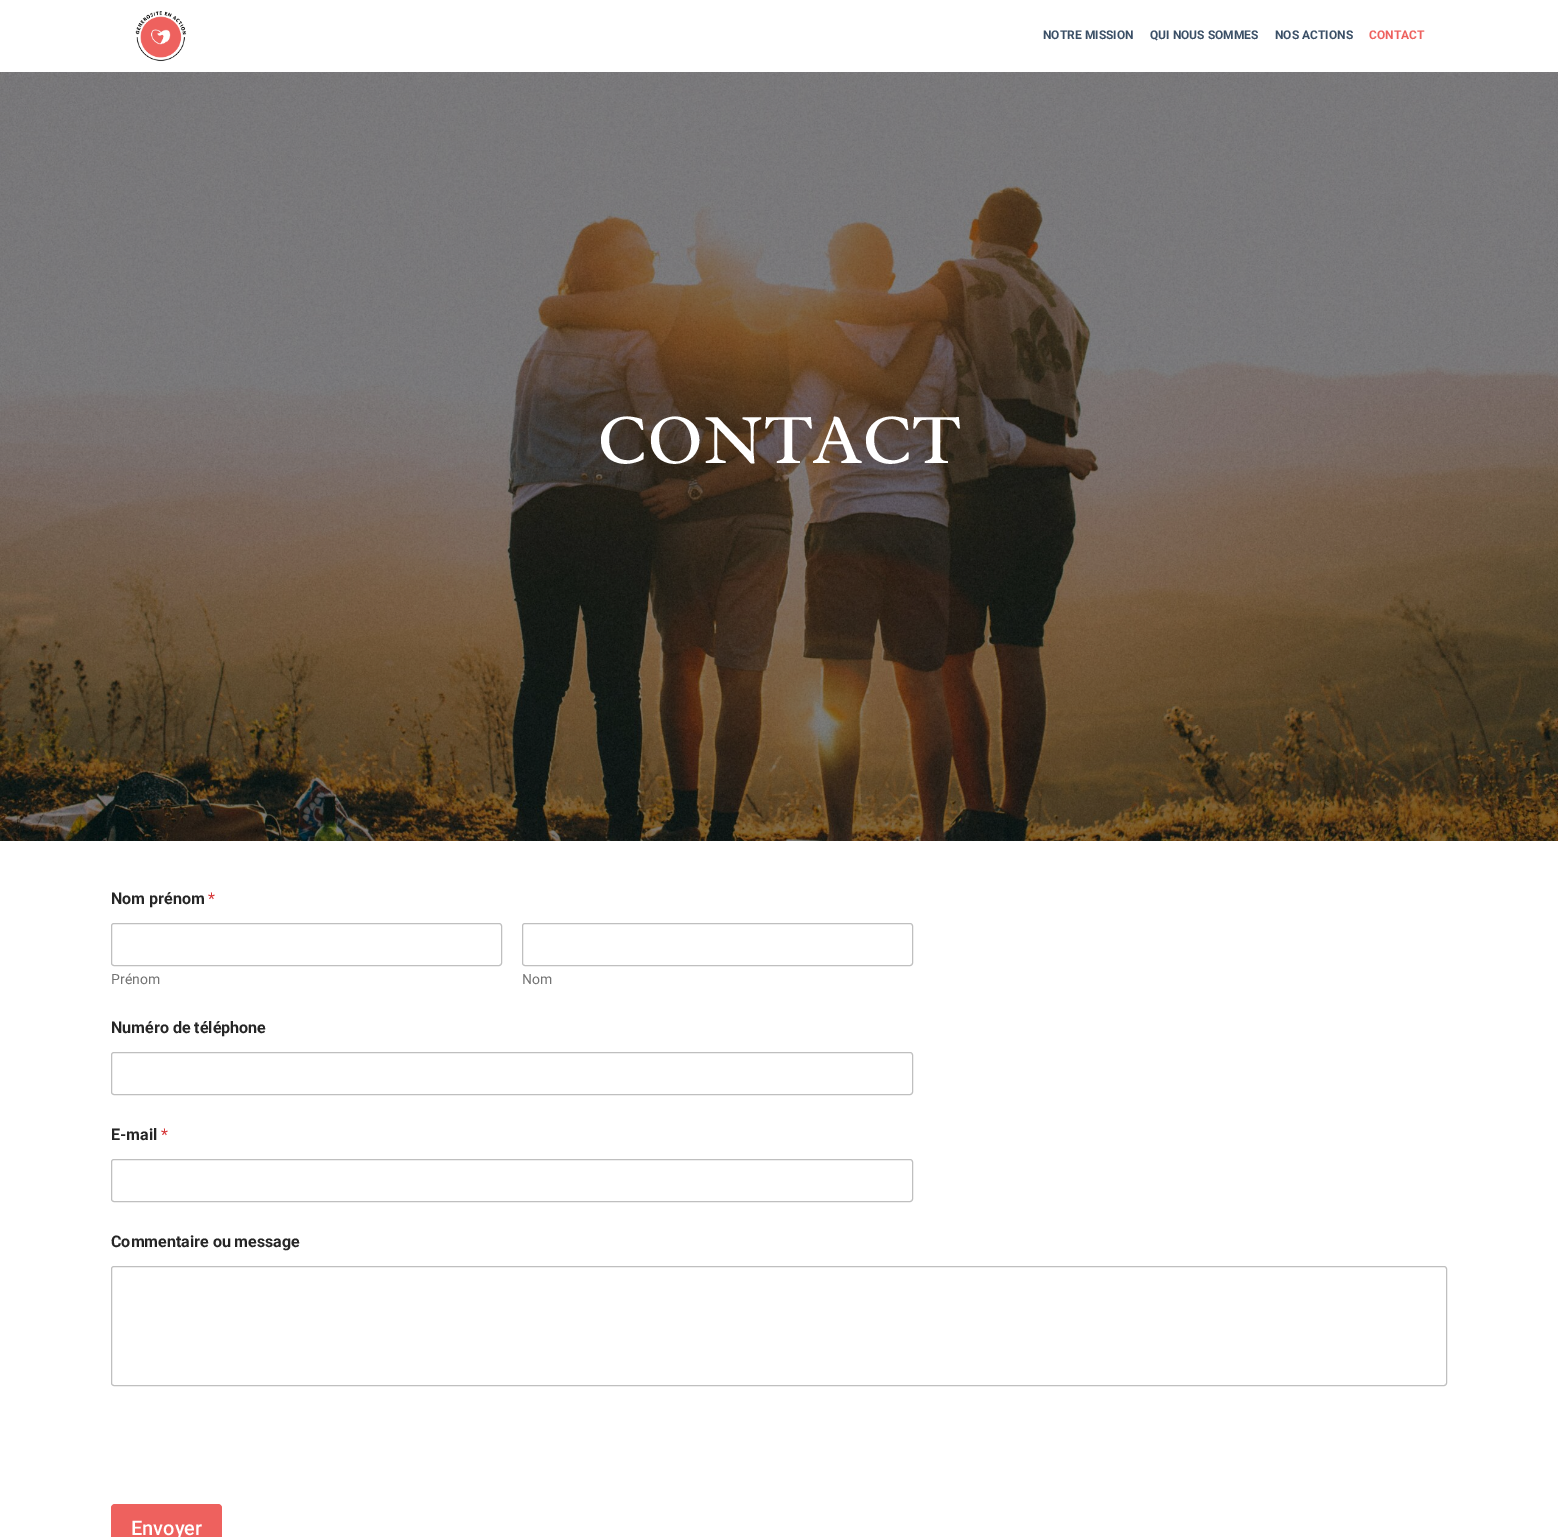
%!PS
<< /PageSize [1558 1537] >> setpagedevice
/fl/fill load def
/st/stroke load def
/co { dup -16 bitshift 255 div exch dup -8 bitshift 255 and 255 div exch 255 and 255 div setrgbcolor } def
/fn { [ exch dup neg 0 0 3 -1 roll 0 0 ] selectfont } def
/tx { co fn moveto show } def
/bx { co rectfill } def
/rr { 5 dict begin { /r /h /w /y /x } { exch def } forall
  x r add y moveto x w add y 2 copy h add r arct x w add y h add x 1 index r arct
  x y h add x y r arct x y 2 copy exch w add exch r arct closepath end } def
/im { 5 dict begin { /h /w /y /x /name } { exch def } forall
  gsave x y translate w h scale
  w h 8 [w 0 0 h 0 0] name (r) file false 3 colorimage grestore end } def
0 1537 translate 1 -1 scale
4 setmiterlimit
0 0 1558 1537 16#FFFFFF bx
(media/1.raw) 135 11 52 51 im
(media/2.raw) 0 72 1558 769 im
16#BFBFBF co
111.5 923.5 390 42 2.5 rr st
522.5 923.5 390 42 2.5 rr st
111.5 1052.5 801 42 2.5 rr st
111.5 1159.5 801 42 2.5 rr st
111.5 1266.5 1335 119 2.5 rr st
16#EE615E co
111 1504 111 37 4 rr fl
(NOTRE MISSION) 1043 39 /Roboto-Bold 12 16#3A4F66 tx
(QUI NOUS SOMMES) 1150 39 /Roboto-Bold 12 16#3A4F66 tx
(NOS ACTIONS) 1275 39 /Roboto-Bold 12 16#3A4F66 tx
(CONTACT) 1369 39 /Roboto-Bold 12 16#EE615E tx
(CONTACT) 597 463 /Radley-Regular 72 16#FFFFFF tx
(Nom prénom) 111 904 /Roboto-Bold 16 16#262626 tx
(*) 208 904 /Roboto-Regular 16 16#D63637 tx
(Prénom) 111 984 /Roboto-Regular 14 16#737373 tx
(Nom) 522 984 /Roboto-Regular 14 16#737373 tx
(Numéro de téléphone) 111 1033 /Roboto-Bold 16 16#262626 tx
(E-mail) 111 1140 /Roboto-Bold 16 16#262626 tx
(*) 161 1140 /Roboto-Regular 16 16#D63637 tx
(Commentaire ou message) 111 1247 /Roboto-Bold 16 16#262626 tx
(Envoyer) 131 1535 /Roboto-Medium 20 16#FFFFFF tx
showpage
